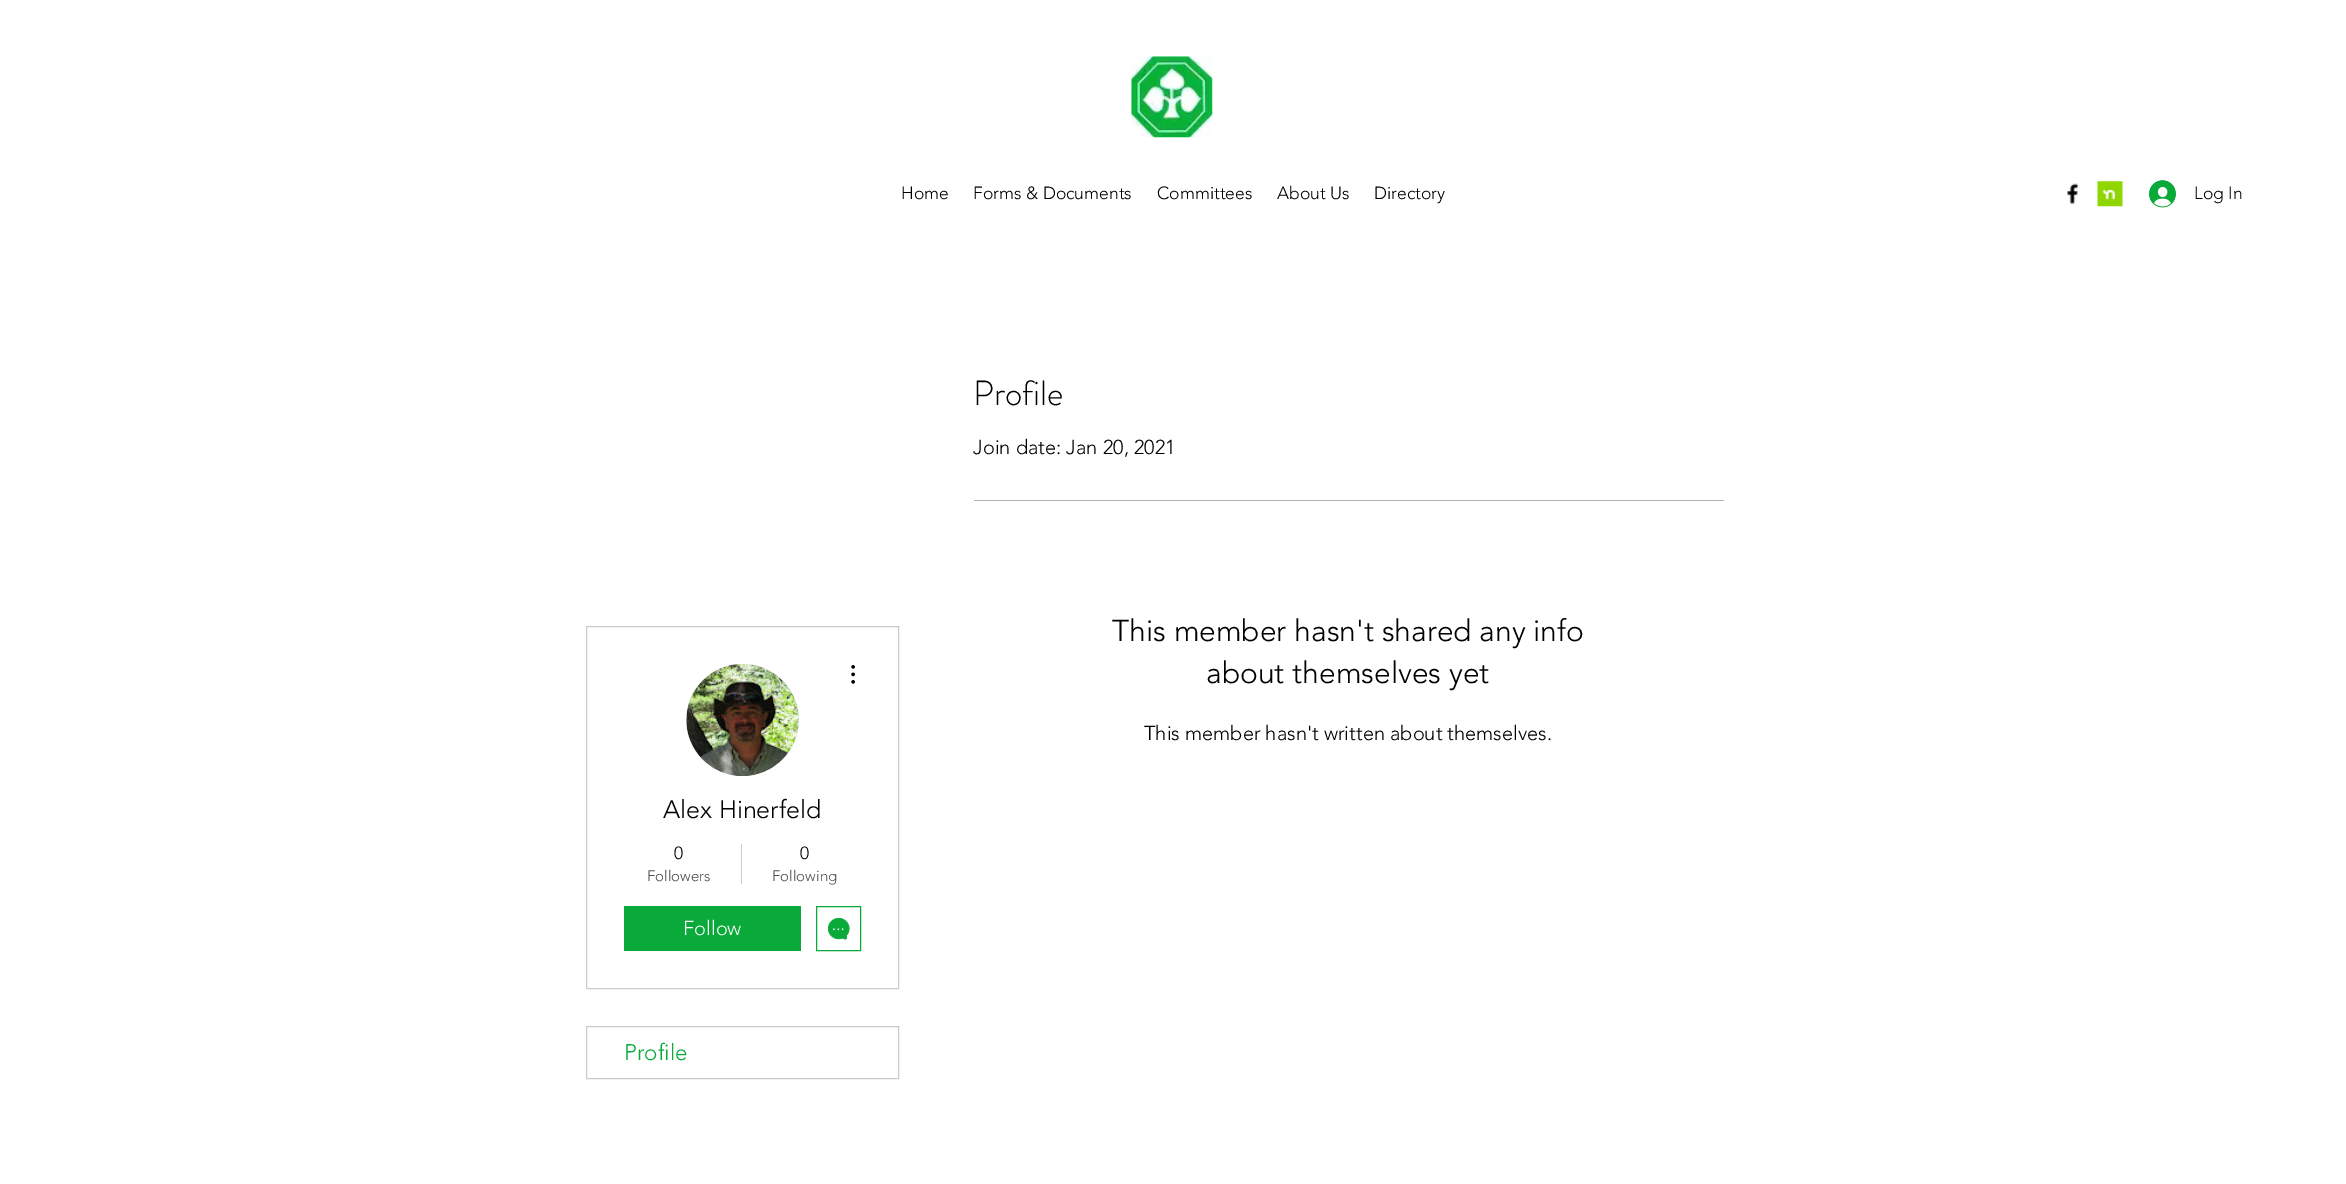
%!PS
<< /PageSize [2346 1184] >> setpagedevice
/fl/fill load def
/co { dup -16 bitshift 255 div exch dup -8 bitshift 255 and 255 div exch 255 and 255 div setrgbcolor } def
/fn { [ exch dup neg 0 0 3 -1 roll 0 0 ] selectfont } def
/tx { co fn moveto show } def
/bx { co rectfill } def
/rr { 5 dict begin { /r /h /w /y /x } { exch def } forall
  x r add y moveto x w add y 2 copy h add r arct x w add y h add x 1 index r arct
  x y h add x y r arct x y 2 copy exch w add exch r arct closepath end } def
/im { 5 dict begin { /h /w /y /x /name } { exch def } forall
  gsave x y translate w h scale
  w h 8 [w 0 0 h 0 0] name (r) file false 3 colorimage grestore end } def
0 1184 translate 1 -1 scale
4 setmiterlimit
0 0 2346 1184 16#FFFFFF bx
(media/1.raw) 1131 56 82 82 im
(media/2.raw) 2067 183 12 21 im
(media/3.raw) 2097 181 26 26 im
(media/4.raw) 2149 180 27 28 im
974 500 750 1 16#B3B3B3 bx
16#CCCCCC co
586.5 626.5 312 362 rectstroke
16#D8D8D8 co
686 664 113 112 56 rr fl
(media/5.raw) 686 664 113 112 im
(media/6.raw) 851 665 4 19 im
741 844 1 40 16#CCCCCC bx
624 906 177 45 16#09AA39 bx
816.5 906.5 44 44 rectstroke
(media/7.raw) 828 918 22 22 im
16#CCCCCC co
586.5 1026.5 312 52 rectstroke
(Home) 901 199 /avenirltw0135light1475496-Light 17.5 16#000000 tx
(Forms & Documents) 973 199 /avenirltw0135light1475496-Light 17.5 16#000000 tx
(Committees) 1157 199 /avenirltw0135light1475496-Light 17.5 16#000000 tx
(About Us) 1277 199 /avenirltw0135light1475496-Light 17.5 16#000000 tx
(Directory) 1374 199 /avenirltw0135light1475496-Light 17.5 16#000000 tx
(Log In) 2194 199 /avenirltw0135light1475496-Light 17.5 16#000000 tx
(Profile) 973 405 /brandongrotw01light-Light 35 16#000000 tx
(Join date: Jan 20, 2021) 973 454 /avenirltw0135light1475496-Light 20 16#000000 tx
(This member hasn't shared any info) 1112 641 /avenirltw0135light1475496-Light 30 16#000000 tx
(about themselves yet) 1206 683 /avenirltw0135light1475496-Light 30 16#000000 tx
(This member hasn't written about themselves.) 1144 740 /avenirltw0135light1475496-Light 20 16#000000 tx
(Alex Hinerfeld) 663 818 /avenirltw0135light1475496-Light 25 16#000000 tx
(0) 674 859 /avenirltw0135light1475496-Light 17.5 16#000000 tx
(Followers) 647 881 /avenirltw0135light1475496-Light 15 16#4D4D4D tx
(0) 800 859 /avenirltw0135light1475496-Light 17.5 16#000000 tx
(Following) 772 881 /avenirltw0135light1475496-Light 15 16#4D4D4D tx
(Follow) 683 935 /avenirltw0135light1475496-Light 20 16#FFFFFF tx
(Profile) 624 1060 /avenirltw0135light1475496-Light 22.5 16#09AA39 tx
showpage
